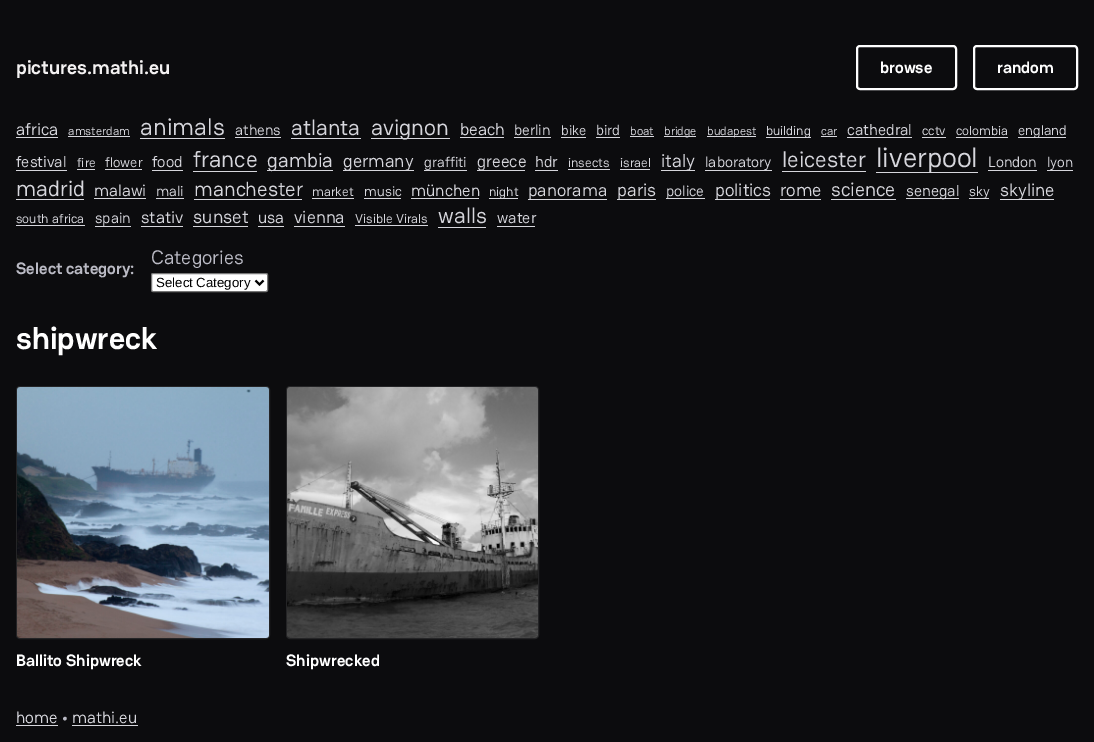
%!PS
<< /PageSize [1094 742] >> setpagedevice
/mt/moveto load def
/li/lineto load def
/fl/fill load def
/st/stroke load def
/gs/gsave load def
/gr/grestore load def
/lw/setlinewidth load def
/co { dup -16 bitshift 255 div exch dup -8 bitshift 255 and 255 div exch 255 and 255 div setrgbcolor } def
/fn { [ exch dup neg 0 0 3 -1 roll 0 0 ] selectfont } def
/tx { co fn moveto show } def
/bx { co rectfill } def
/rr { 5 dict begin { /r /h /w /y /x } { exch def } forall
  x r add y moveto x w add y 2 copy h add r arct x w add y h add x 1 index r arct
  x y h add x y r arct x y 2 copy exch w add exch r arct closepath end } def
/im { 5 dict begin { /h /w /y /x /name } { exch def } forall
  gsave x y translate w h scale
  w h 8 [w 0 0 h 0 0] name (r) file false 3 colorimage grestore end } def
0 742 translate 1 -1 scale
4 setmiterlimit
0 0 1094 742 16#0C0C0E bx
16#FFFFFF co
2 lw
857 46 99 43 3 rr st
974 46 103 43 3 rr st
16 137 42 1 16#D6D6DC bx
68 136 62 1 16#D6D6DC bx
140 138 85 1 16#D6D6DC bx
235 137 46 1 16#D6D6DC bx
291 138 70 1 16#D6D6DC bx
371 138 79 1 16#D6D6DC bx
460 137 44 1 16#D6D6DC bx
514 137 37 1 16#D6D6DC bx
561 137 25 1 16#D6D6DC bx
596 137 24 1 16#D6D6DC bx
630 136 24 1 16#D6D6DC bx
664 136 32 1 16#D6D6DC bx
707 136 49 1 16#D6D6DC bx
766 137 45 1 16#D6D6DC bx
821 136 16 1 16#D6D6DC bx
847 137 65 1 16#D6D6DC bx
922 137 24 1 16#D6D6DC bx
956 137 52 1 16#D6D6DC bx
1018 137 48 1 16#D6D6DC bx
16 170 51 1 16#D6D6DC bx
77 169 18 1 16#D6D6DC bx
105 169 37 1 16#D6D6DC bx
152 170 31 1 16#D6D6DC bx
193 171 64 1 16#D6D6DC bx
267 170 66 1 16#D6D6DC bx
343 170 71 1 16#D6D6DC bx
424 170 43 1 16#D6D6DC bx
477 170 48 1 16#D6D6DC bx
535 170 23 1 16#D6D6DC bx
568 169 42 1 16#D6D6DC bx
620 169 30 1 16#D6D6DC bx
661 170 34 1 16#D6D6DC bx
705 170 67 1 16#D6D6DC bx
782 171 84 1 16#D6D6DC bx
876 172 102 1 16#D6D6DC bx
988 170 49 1 16#D6D6DC bx
1047 170 26 1 16#D6D6DC bx
16 199 68 1 16#D6D6DC bx
94 198 52 1 16#D6D6DC bx
156 198 28 1 16#D6D6DC bx
194 199 108 1 16#D6D6DC bx
312 198 42 1 16#D6D6DC bx
364 198 37 1 16#D6D6DC bx
411 198 68 1 16#D6D6DC bx
489 198 29 1 16#D6D6DC bx
528 199 79 1 16#D6D6DC bx
617 199 39 1 16#D6D6DC bx
666 198 39 1 16#D6D6DC bx
715 199 55 1 16#D6D6DC bx
780 199 41 1 16#D6D6DC bx
831 199 65 1 16#D6D6DC bx
906 198 53 1 16#D6D6DC bx
969 198 20 1 16#D6D6DC bx
1000 199 54 1 16#D6D6DC bx
16 225 69 1 16#D6D6DC bx
95 226 36 1 16#D6D6DC bx
141 226 42 1 16#D6D6DC bx
193 226 55 1 16#D6D6DC bx
258 226 26 1 16#D6D6DC bx
294 226 51 1 16#D6D6DC bx
355 225 73 1 16#D6D6DC bx
438 227 48 1 16#D6D6DC bx
497 226 38 1 16#D6D6DC bx
16#FFFFFF co
151.5 273.5 116 18 1.5 rr gs fl gr
16#767676 co
1 lw
st
16#000000 co
2 lw
255.5 280.5 mt 259.5 284.5 li 263.5 280.5 li st
16#242426 co
1 lw
16.5 386.5 253 252 3.5 rr st
(media/1.raw) 17 387 252 251 im
286.5 386.5 252 252 3.5 rr st
(media/2.raw) 287 387 251 251 im
16 725 42 1 16#D6D6DC bx
72 725 66 1 16#D6D6DC bx
(pictures.mathi.eu) 16 74 /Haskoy-Bold 19.5 16#F3F1F1 tx
(browse) 880 73 /Haskoy-Bold 16.5 16#FFFFFF tx
(random) 997 73 /Haskoy-Bold 16.5 16#FFFFFF tx
(africa) 16 135 /Haskoy-Regular 17 16#D6D6DC tx
(amsterdam) 68 135 /Haskoy-Regular 12 16#D6D6DC tx
(animals) 140 135 /Haskoy-Regular 24 16#D6D6DC tx
(athens) 235 135 /Haskoy-Regular 15 16#D6D6DC tx
(atlanta) 291 135 /Haskoy-Regular 22 16#D6D6DC tx
(avignon) 371 135 /Haskoy-Regular 22.5 16#D6D6DC tx
(beach) 460 135 /Haskoy-Regular 17 16#D6D6DC tx
(berlin) 514 135 /Haskoy-Regular 15 16#D6D6DC tx
(bike) 561 135 /Haskoy-Regular 14 16#D6D6DC tx
(bird) 596 135 /Haskoy-Regular 14.5 16#D6D6DC tx
(boat) 630 135 /Haskoy-Regular 12 16#D6D6DC tx
(bridge) 664 135 /Haskoy-Regular 12 16#D6D6DC tx
(budapest) 707 135 /Haskoy-Regular 12 16#D6D6DC tx
(building) 766 135 /Haskoy-Regular 13 16#D6D6DC tx
(car) 821 135 /Haskoy-Regular 12 16#D6D6DC tx
(cathedral) 847 135 /Haskoy-Regular 15.75 16#D6D6DC tx
(cctv) 922 135 /Haskoy-Regular 13 16#D6D6DC tx
(colombia) 956 135 /Haskoy-Regular 13 16#D6D6DC tx
(england) 1018 135 /Haskoy-Regular 14 16#D6D6DC tx
(festival) 16 167 /Haskoy-Regular 15.75 16#D6D6DC tx
(fire) 77 167 /Haskoy-Regular 13 16#D6D6DC tx
(flower) 105 167 /Haskoy-Regular 14 16#D6D6DC tx
(food) 152 167 /Haskoy-Regular 15.75 16#D6D6DC tx
(france) 193 167 /Haskoy-Regular 23 16#D6D6DC tx
(gambia) 267 167 /Haskoy-Regular 20 16#D6D6DC tx
(germany) 343 167 /Haskoy-Regular 18 16#D6D6DC tx
(graffiti) 424 167 /Haskoy-Regular 14.5 16#D6D6DC tx
(greece) 477 167 /Haskoy-Regular 17 16#D6D6DC tx
(hdr) 535 167 /Haskoy-Regular 15.75 16#D6D6DC tx
(insects) 568 167 /Haskoy-Regular 13 16#D6D6DC tx
(israel) 620 167 /Haskoy-Regular 13 16#D6D6DC tx
(italy) 661 167 /Haskoy-Regular 18.5 16#D6D6DC tx
(laboratory) 705 167 /Haskoy-Regular 15 16#D6D6DC tx
(leicester) 782 167 /Haskoy-Regular 22.5 16#D6D6DC tx
(liverpool) 876 167 /Haskoy-Regular 28 16#D6D6DC tx
(London) 988 167 /Haskoy-Regular 15 16#D6D6DC tx
(lyon) 1047 167 /Haskoy-Regular 14.5 16#D6D6DC tx
(madrid) 16 196 /Haskoy-Regular 22 16#D6D6DC tx
(malawi) 94 196 /Haskoy-Regular 16.5 16#D6D6DC tx
(mali) 156 196 /Haskoy-Regular 14.5 16#D6D6DC tx
(manchester) 194 196 /Haskoy-Regular 20.5 16#D6D6DC tx
(market) 312 196 /Haskoy-Regular 13 16#D6D6DC tx
(music) 364 196 /Haskoy-Regular 14 16#D6D6DC tx
(münchen) 411 196 /Haskoy-Regular 16.5 16#D6D6DC tx
(night) 489 196 /Haskoy-Regular 13 16#D6D6DC tx
(panorama) 528 196 /Haskoy-Regular 17.5 16#D6D6DC tx
(paris) 617 196 /Haskoy-Regular 18 16#D6D6DC tx
(police) 666 196 /Haskoy-Regular 15 16#D6D6DC tx
(politics) 715 196 /Haskoy-Regular 18 16#D6D6DC tx
(rome) 780 196 /Haskoy-Regular 18 16#D6D6DC tx
(science) 831 196 /Haskoy-Regular 19.5 16#D6D6DC tx
(senegal) 906 196 /Haskoy-Regular 15.75 16#D6D6DC tx
(sky) 969 196 /Haskoy-Regular 14 16#D6D6DC tx
(skyline) 1000 196 /Haskoy-Regular 18 16#D6D6DC tx
(south africa) 16 223 /Haskoy-Regular 13 16#D6D6DC tx
(spain) 95 223 /Haskoy-Regular 15 16#D6D6DC tx
(stativ) 141 223 /Haskoy-Regular 17 16#D6D6DC tx
(sunset) 193 223 /Haskoy-Regular 18.5 16#D6D6DC tx
(usa) 258 223 /Haskoy-Regular 16.5 16#D6D6DC tx
(vienna) 294 223 /Haskoy-Regular 17.5 16#D6D6DC tx
(Visible Virals) 355 223 /Haskoy-Regular 13 16#D6D6DC tx
(walls) 438 223 /Haskoy-Regular 22 16#D6D6DC tx
(water) 497 223 /Haskoy-Regular 15.75 16#D6D6DC tx
(Select category:) 16 274 /Haskoy-Bold 16.5 16#BABAC4 tx
(Categories) 151 264 /Haskoy-Regular 19.5 16#BABAC4 tx
(Select Category) 156 287 /LiberationSans-Regular 13.25 16#000000 tx
(shipwreck) 16 349 /Haskoy-Bold 31.5 16#FFFFFF tx
(Ballito Shipwreck) 16 666 /Haskoy-Bold 16.5 16#FFFFFF tx
(Shipwrecked) 286 666 /Haskoy-Bold 16.5 16#FFFFFF tx
(home) 16 723 /Haskoy-Regular 16.5 16#D6D6DC tx
(•) 62 723 /Haskoy-Regular 16.5 16#BABAC4 tx
(mathi.eu) 72 723 /Haskoy-Regular 16.5 16#D6D6DC tx
showpage
